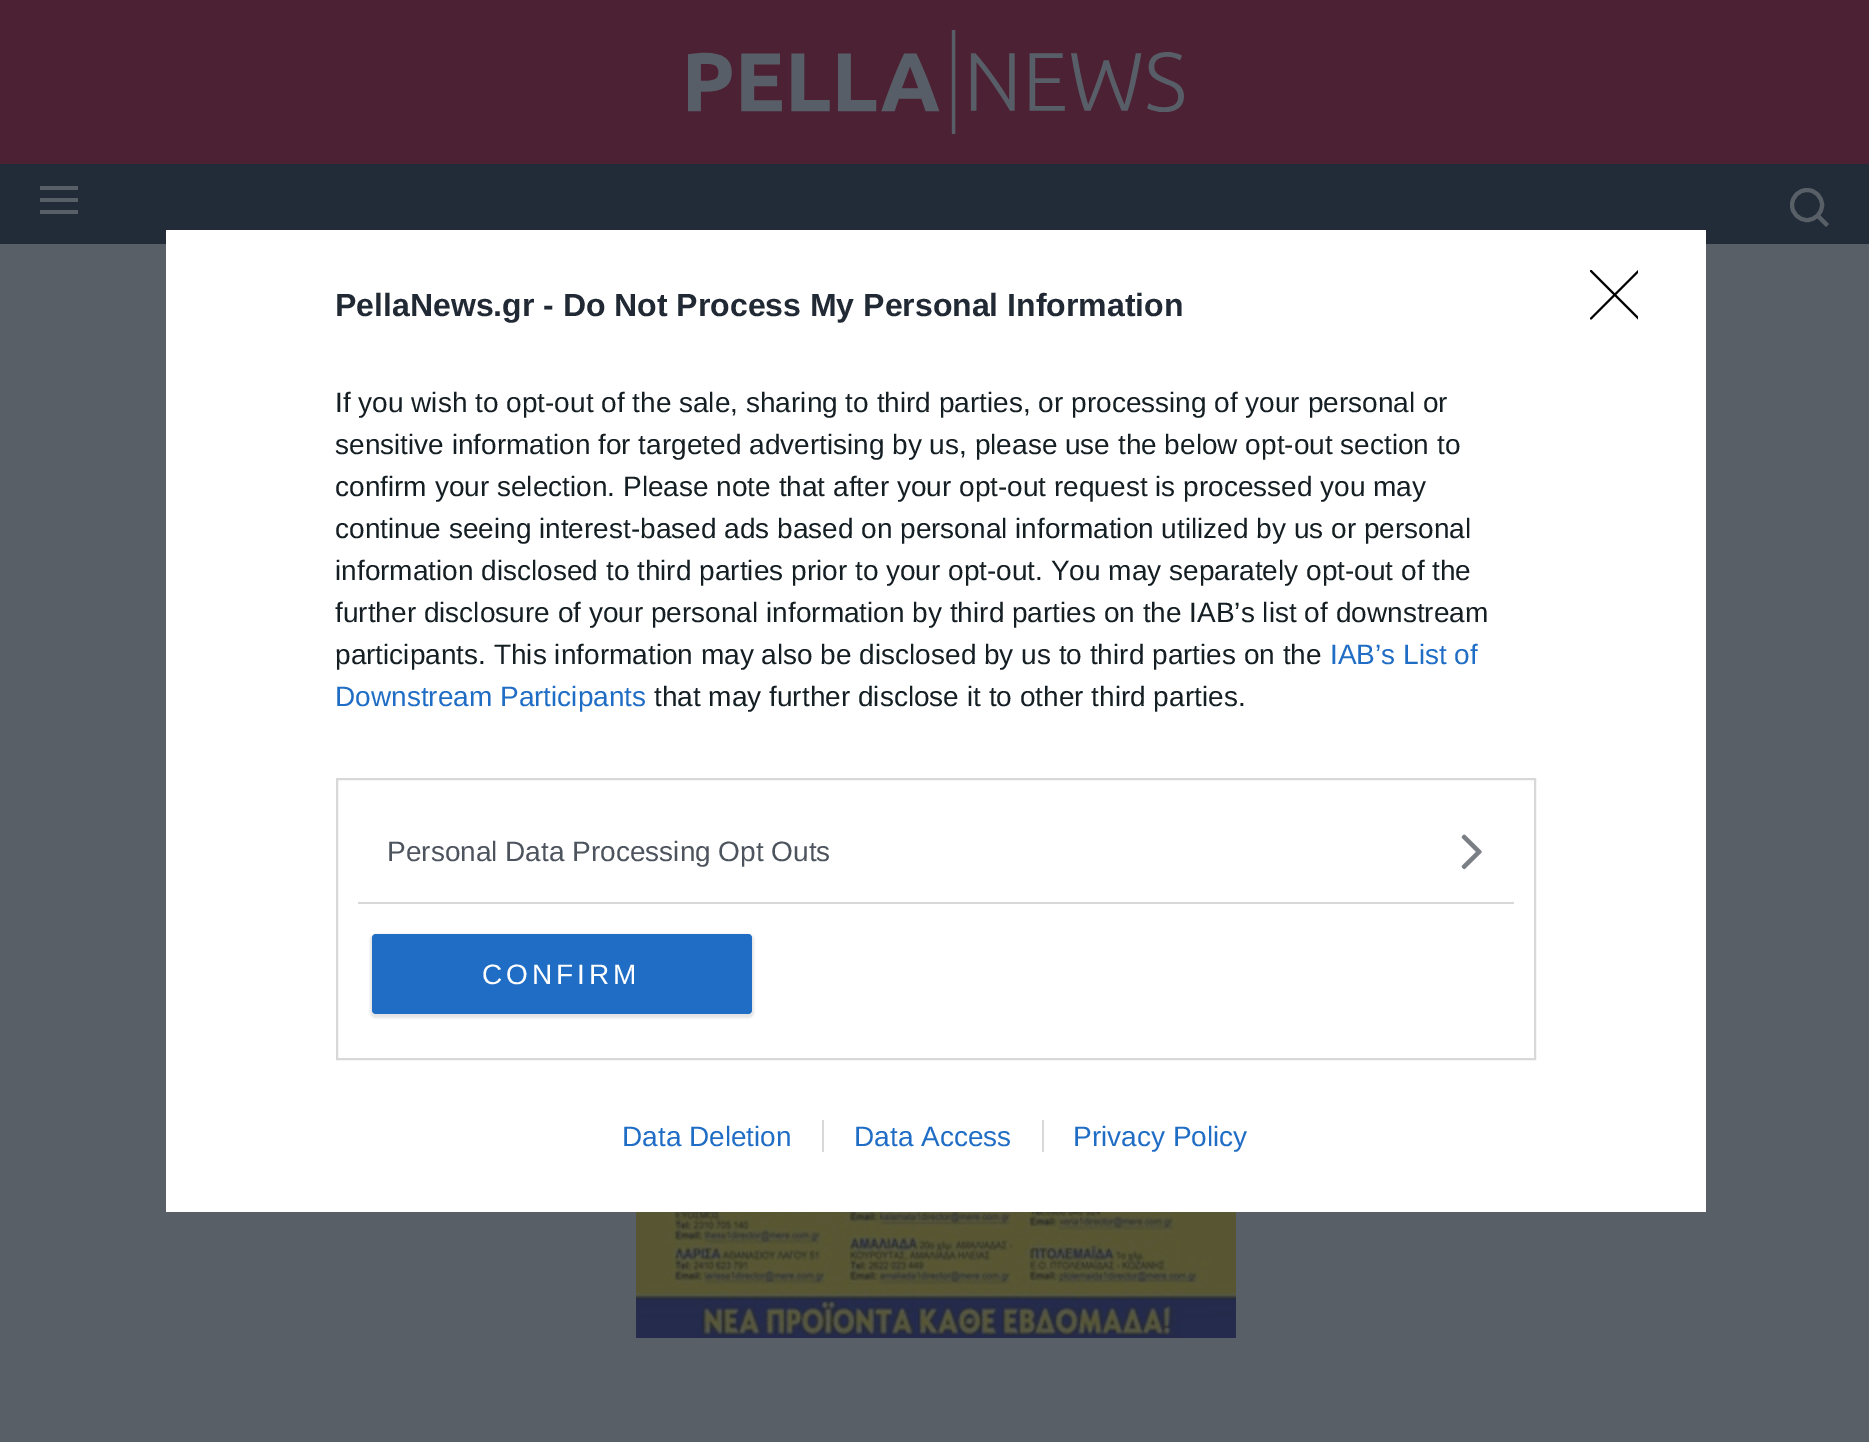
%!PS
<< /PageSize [1869 1442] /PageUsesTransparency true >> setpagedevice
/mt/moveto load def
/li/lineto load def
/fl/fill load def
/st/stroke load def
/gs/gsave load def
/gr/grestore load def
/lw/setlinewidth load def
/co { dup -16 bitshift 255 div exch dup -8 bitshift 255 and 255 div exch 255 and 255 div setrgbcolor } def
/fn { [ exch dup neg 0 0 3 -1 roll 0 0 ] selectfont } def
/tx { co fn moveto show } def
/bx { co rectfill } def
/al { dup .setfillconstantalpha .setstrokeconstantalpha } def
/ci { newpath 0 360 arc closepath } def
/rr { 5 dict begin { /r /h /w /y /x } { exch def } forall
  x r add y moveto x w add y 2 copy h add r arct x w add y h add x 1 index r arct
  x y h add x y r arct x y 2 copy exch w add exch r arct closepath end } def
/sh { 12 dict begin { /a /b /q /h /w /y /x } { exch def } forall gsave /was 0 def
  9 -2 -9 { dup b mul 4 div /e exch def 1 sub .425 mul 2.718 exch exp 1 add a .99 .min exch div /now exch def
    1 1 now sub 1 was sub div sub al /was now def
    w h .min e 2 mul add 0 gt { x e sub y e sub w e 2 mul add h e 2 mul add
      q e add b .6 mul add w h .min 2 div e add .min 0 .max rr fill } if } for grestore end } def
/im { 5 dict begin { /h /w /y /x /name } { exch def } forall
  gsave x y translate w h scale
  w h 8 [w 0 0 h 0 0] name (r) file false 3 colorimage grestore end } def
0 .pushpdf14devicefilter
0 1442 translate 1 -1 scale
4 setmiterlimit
0 0 1869 1442 16#595F67 bx
0 0 1869 164 16#4C2134 bx
(media/1.raw) 688 30 496 104 im
0 164 1869 80 16#222B38 bx
40 186 38 4 16#595F67 bx
40 198 38 4 16#595F67 bx
40 210 38 4 16#595F67 bx
4 lw
1807 205 15 ci st
2 setlinecap
1819 217 mt 1826 224 li st
166 230 1540 982 16#FFFFFF bx
16#D8D8D8 co
2 lw
0 setlinecap
337 779 1198 280 rectstroke
358 902 1156 2 16#D8D8D8 bx
(media/2.raw) 1461 834 21 36 im
16#000000 co
370 934 384 84 6 1 .1 sh
16#206DC5 co
372 934 380 80 4 rr fl
gs
1590 270 48 50 rectclip
16#000000 co
2.1 lw
1 setlinecap
1 setlinejoin
1591 271 mt 1638.5 318.5 li 1638.5 271 mt 1591 318.5 li st
gr
822 1120 2 32 16#D8D8D8 bx
1042 1120 2 32 16#D8D8D8 bx
(media/3.raw) 636 1212 600 126 im
(PellaNews.gr - Do Not Process My Personal Information) 335 316 /LiberationSans-Bold 32 16#212934 tx
(If you wish to opt-out of the sale, sharing to third parties, or processing of your personal or) 335 412 /LiberationSans-Regular 28 16#141E23 tx
(sensitive information for targeted advertising by us, please use the below opt-out section to) 335 454 /LiberationSans-Regular 28 16#141E23 tx
(confirm your selection. Please note that after your opt-out request is processed you may) 335 496 /LiberationSans-Regular 28 16#141E23 tx
(continue seeing interest-based ads based on personal information utilized by us or personal) 335 538 /LiberationSans-Regular 28 16#141E23 tx
(information disclosed to third parties prior to your opt-out. You may separately opt-out of the) 335 580 /LiberationSans-Regular 28 16#141E23 tx
(further disclosure of your personal information by third parties on the IAB’s list of downstream) 335 622 /LiberationSans-Regular 28 16#141E23 tx
(participants. This information may also be disclosed by us to third parties on the) 335 664 /LiberationSans-Regular 28 16#141E23 tx
(IAB’s List of) 1330 664 /LiberationSans-Regular 28 16#206DC5 tx
(Downstream Participants) 335 706 /LiberationSans-Regular 28 16#206DC5 tx
(that may further disclose it to other third parties.) 654 706 /LiberationSans-Regular 28 16#141E23 tx
(Personal Data Processing Opt Outs) 387 861 /LiberationSans-Regular 28 16#4D545D tx
16#FFFFFF co
482 984 mt 4 0 (CONFIRM) ashow
(Data Deletion) 622 1146 /LiberationSans-Regular 28 16#206DC5 tx
(Data Access) 854 1146 /LiberationSans-Regular 28 16#206DC5 tx
(Privacy Policy) 1073 1146 /LiberationSans-Regular 28 16#206DC5 tx
.poppdf14devicefilter showpage
